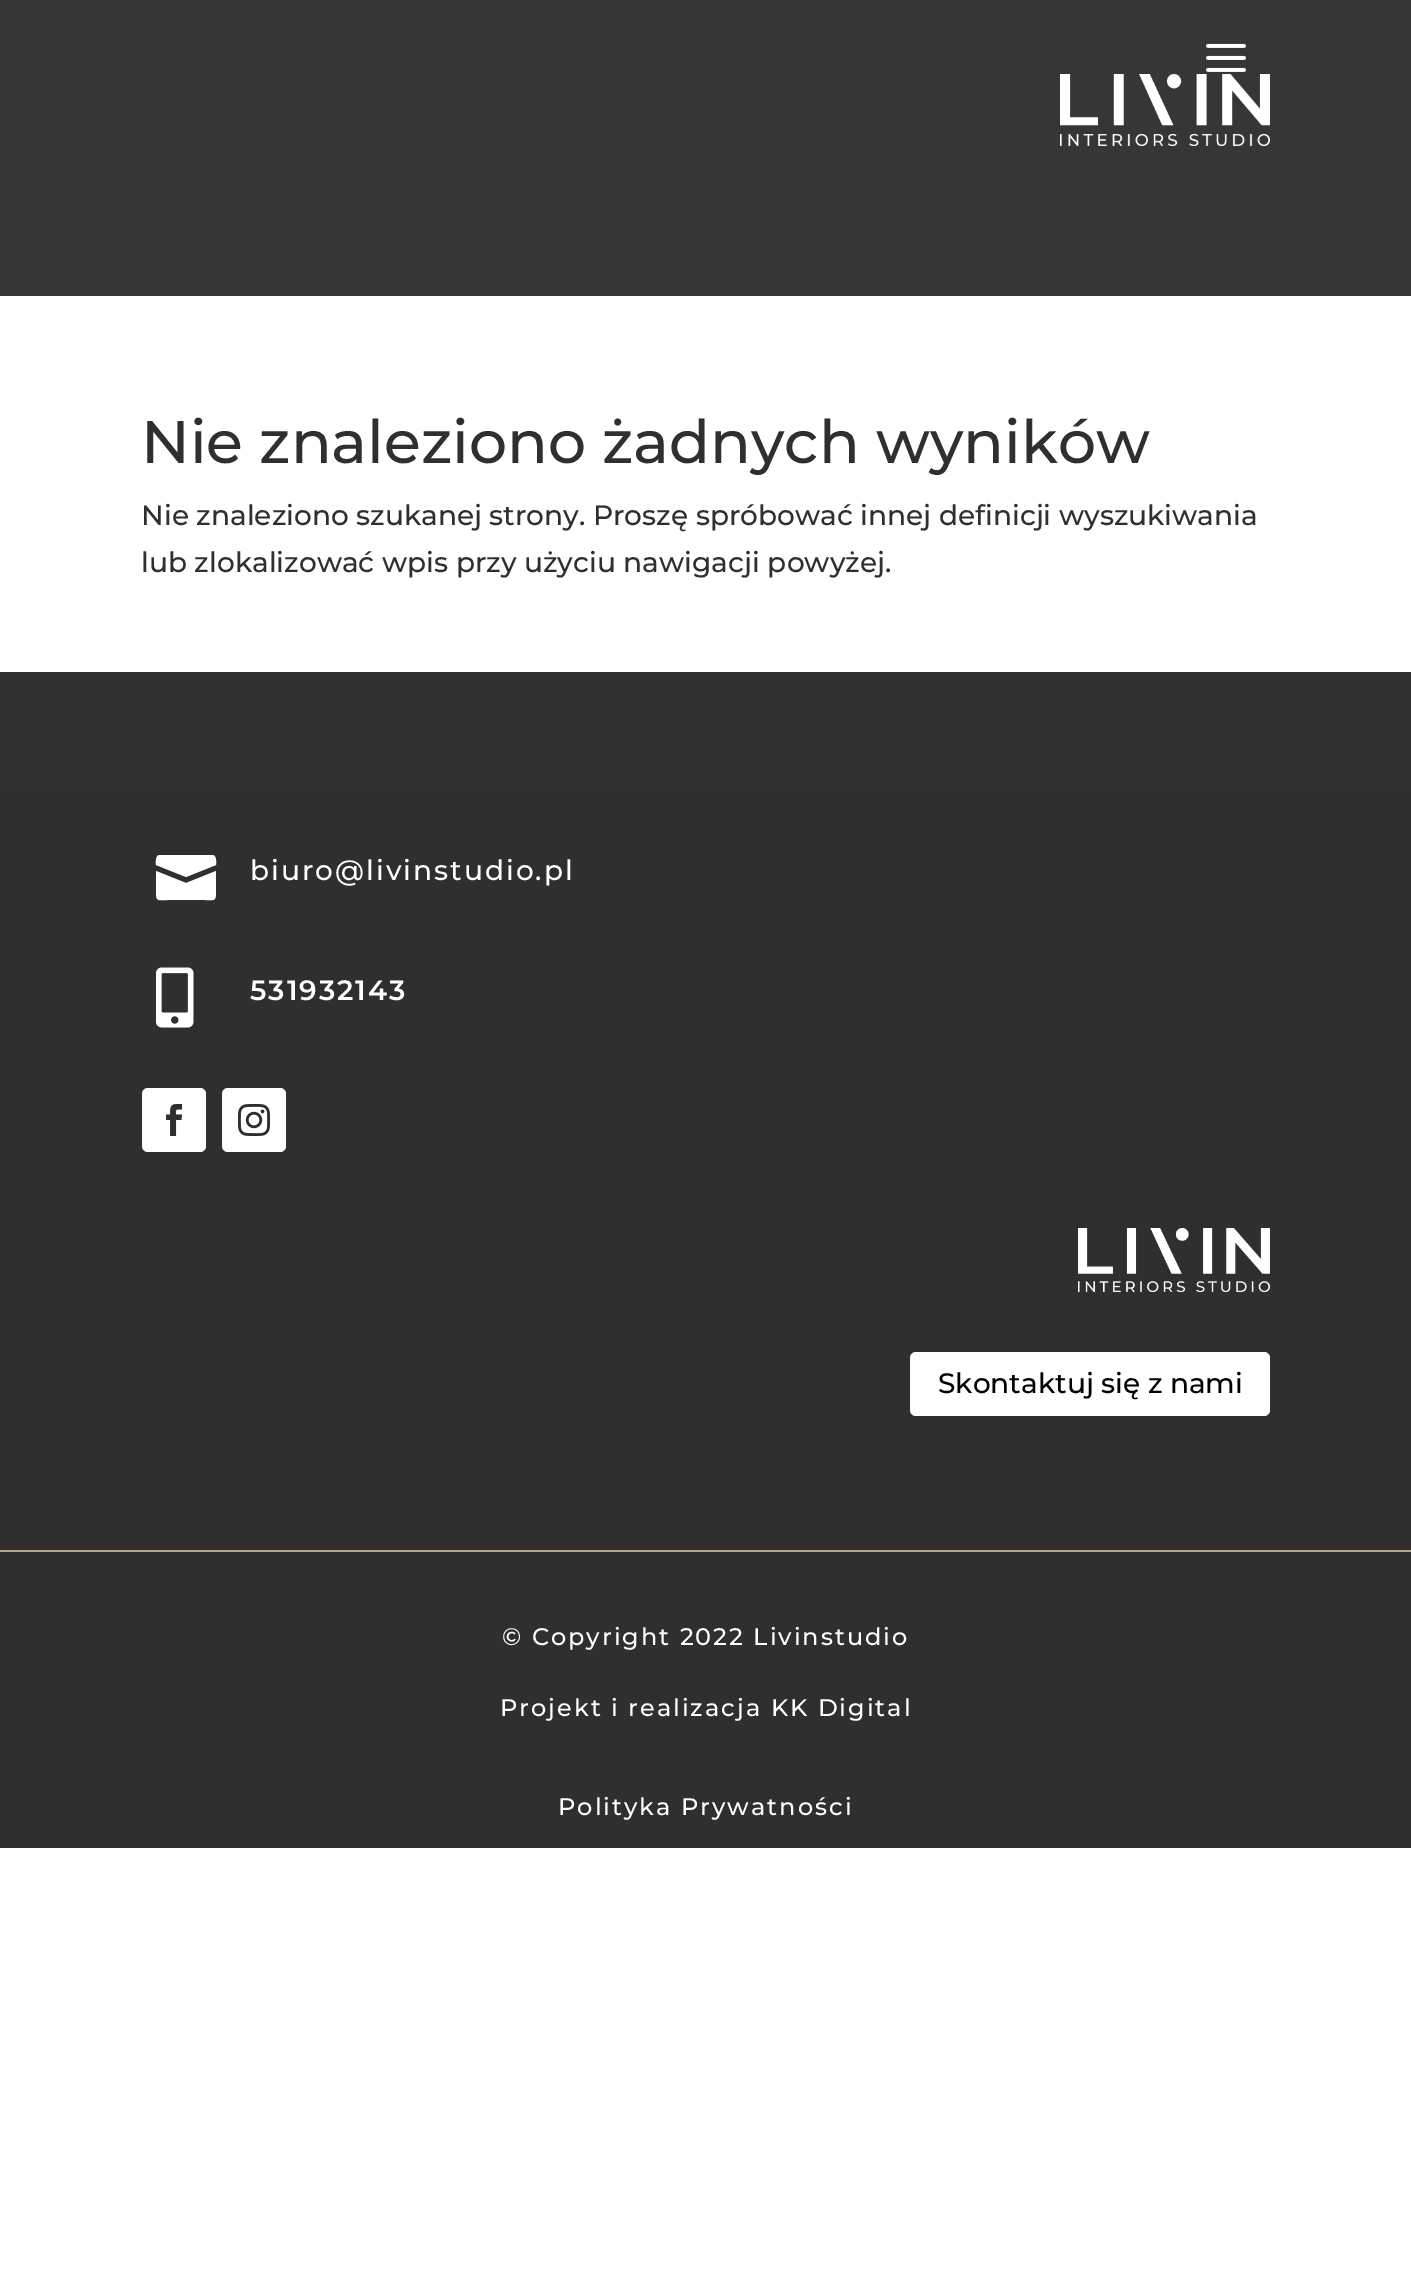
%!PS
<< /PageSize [1411 2276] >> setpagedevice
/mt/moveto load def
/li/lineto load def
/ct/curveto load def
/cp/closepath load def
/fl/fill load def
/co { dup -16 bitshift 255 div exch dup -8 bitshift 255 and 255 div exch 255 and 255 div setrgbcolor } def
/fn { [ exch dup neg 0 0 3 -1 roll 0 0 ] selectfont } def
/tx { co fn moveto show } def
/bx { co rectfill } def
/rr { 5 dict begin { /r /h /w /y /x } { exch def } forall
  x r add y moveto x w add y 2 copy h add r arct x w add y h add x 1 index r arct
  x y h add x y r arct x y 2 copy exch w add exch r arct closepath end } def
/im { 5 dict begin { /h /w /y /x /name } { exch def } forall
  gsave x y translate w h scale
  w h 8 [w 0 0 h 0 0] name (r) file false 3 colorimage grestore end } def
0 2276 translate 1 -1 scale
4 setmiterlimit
0 0 1411 2276 16#FFFFFF bx
0 0 1411 296 16#363636 bx
(media/1.raw) 1206 43 40 29 im
(media/2.raw) 1060 74 210 72 im
0 672 1411 116 16#31302F bx
0 788 1411 1060 16#302F2E bx
16#FFFFFF co
212 855 mt 160 855 li 155 855 156 862 156 865 ct 186 877 li 216 865 li 216 862 217 855 212 855 ct cp 156 871 mt 156 892 li 156 902 158 900 168 900 ct 204 900 li 214 900 216 902 216 892 ct 216 871 li 186 883 li cp fl
(media/3.raw) 156 967 38 61 im
142 1088 64 64 6 rr fl
(media/4.raw) 166 1104 17 32 im
222 1088 64 64 6 rr fl
(media/5.raw) 238 1104 32 32 im
(media/6.raw) 1078 1228 192 64 im
910 1352 360 64 6 rr fl
0 1550 1411 2 16#B6A998 bx
(Nie znaleziono żadnych wyników) 141 463 /Montserrat-Thin 60 16#302F2E tx
(Nie znaleziono szukanej strony. Proszę spróbować innej definicji wyszukiwania) 141 525 /Montserrat-Thin 28 16#302F2E tx
(lub zlokalizować wpis przy użyciu nawigacji powyżej.) 141 572 /Montserrat-Thin 28 16#302F2E tx
16#FFFFFF co
250 880 mt 2 0 (biuro@livinstudio.pl) ashow
/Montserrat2-Thin 28 fn
250 1000 mt 2 0 (531932143) ashow
(Skontaktuj się z nami) 938 1393 /Montserrat-Thin 28 16#000000 tx
/Montserrat-Thin 24 fn
16#FFFFFF co
502 1645 mt 2 0 (© Copyright 2022 Livinstudio) ashow
500 1716 mt 2 0 (Projekt i realizacja KK Digital) ashow
558 1815 mt 2 0 (Polityka Prywatności) ashow
showpage
